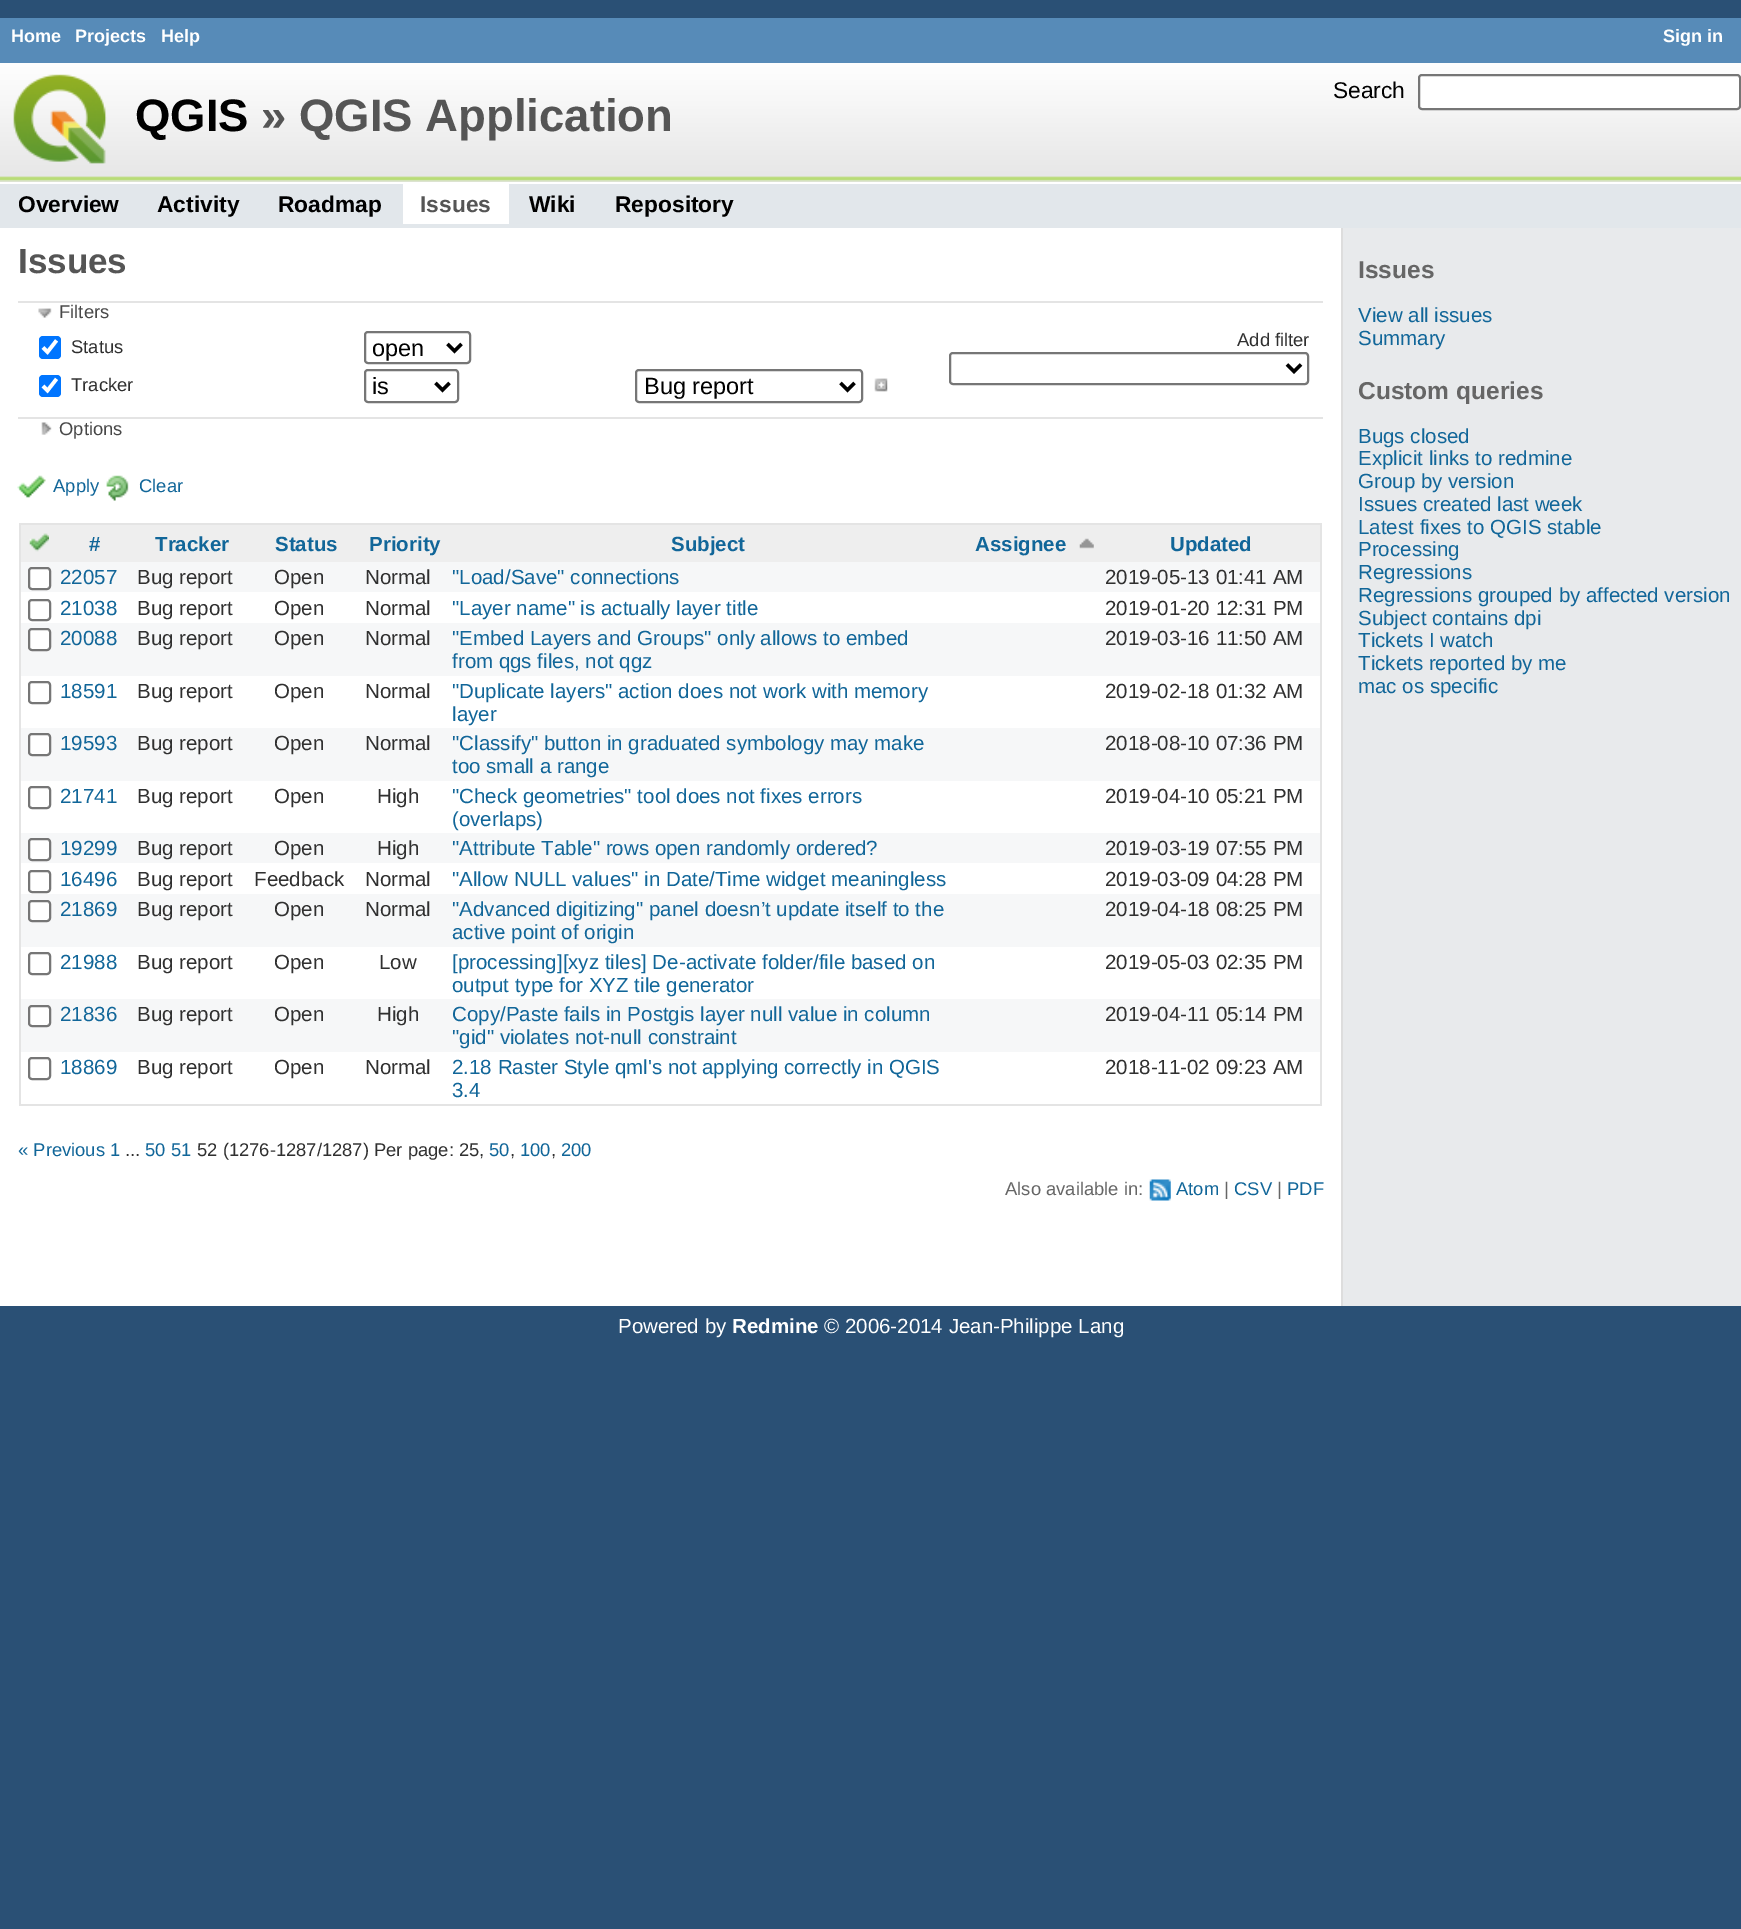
%!PS
<< /PageSize [1741 1929] >> setpagedevice
/mt/moveto load def
/li/lineto load def
/fl/fill load def
/st/stroke load def
/gs/gsave load def
/gr/grestore load def
/lw/setlinewidth load def
/co { dup -16 bitshift 255 div exch dup -8 bitshift 255 and 255 div exch 255 and 255 div setrgbcolor } def
/fn { [ exch dup neg 0 0 3 -1 roll 0 0 ] selectfont } def
/tx { co fn moveto show } def
/bx { co rectfill } def
/rr { 5 dict begin { /r /h /w /y /x } { exch def } forall
  x r add y moveto x w add y 2 copy h add r arct x w add y h add x 1 index r arct
  x y h add x y r arct x y 2 copy exch w add exch r arct closepath end } def
/im { 5 dict begin { /h /w /y /x /name } { exch def } forall
  gsave x y translate w h scale
  w h 8 [w 0 0 h 0 0] name (r) file false 3 colorimage grestore end } def
0 1929 translate 1 -1 scale
4 setmiterlimit
0 0 1741 1929 16#2A5075 bx
0 18 1741 45 16#578BB8 bx
0 184 1741 44 16#E2E7EB bx
(media/1.raw) 0 63 1741 119 im
16#FFFFFF co
1419 75 321 34 3 rr gs fl gr
16#767676 co
2 lw
st
(media/2.raw) 13 74 94 90 im
0 182 1741 2 16#FFFFFF bx
403 184 106 40 16#FFFFFF bx
1343 228 398 1078 16#E8EAEC bx
0 228 1341 1078 16#FFFFFF bx
1341 228 2 1078 16#DDDDDD bx
18 301 1305 2 16#E4E4E4 bx
(media/3.raw) 38 308 14 10 im
16#0075FF co
39 336 22 23 4 rr fl
16#FFFFFF co
3.6 lw
43 347.5 mt 47.5 352 li 56.5 340.5 li st
16#767676 co
2 lw
365 332 105 31 3 rr st
16#000000 co
3.5 lw
447.5 344 mt 454.5 351 li 461.5 344 li st
16#0075FF co
39 375 22 22 4 rr fl
16#FFFFFF co
3.6 lw
43 386 mt 47.5 390.5 li 56.5 379 li st
16#767676 co
2 lw
365 370 93 32 3 rr st
16#000000 co
3.5 lw
435.5 383 mt 442.5 390 li 449.5 383 li st
16#767676 co
2 lw
636 370 226 32 3 rr st
16#000000 co
3.5 lw
840.5 383 mt 847.5 390 li 854.5 383 li st
(media/4.raw) 874 378 14 14 im
16#767676 co
2 lw
950 353 358 31 3 rr st
16#000000 co
3.5 lw
1287 364.5 mt 1294 371.5 li 1301 364.5 li st
18 417 1305 2 16#E4E4E4 bx
(media/5.raw) 41 422 11 13 im
(media/6.raw) 17 475 29 23 im
(media/7.raw) 106 475 23 26 im
19 523 1302 2 16#E4E4E4 bx
1320 523 2 583 16#E4E4E4 bx
19 1104 1302 2 16#E4E4E4 bx
19 523 2 583 16#E4E4E4 bx
21 525 1299 37 16#EEEEEE bx
(media/8.raw) 29 533 20 19 im
(media/9.raw) 1079 538 15 11 im
21 562 1299 30 16#F6F7F8 bx
16#FFFFFF co
29 568 21 21 3 rr gs fl gr
16#767676 co
2 lw
st
29 600 21 20 3 rr st
21 623 1299 53 16#F6F7F8 bx
16#FFFFFF co
29 629 21 21 3 rr gs fl gr
16#767676 co
st
29 682 21 21 3 rr st
21 728 1299 53 16#F6F7F8 bx
16#FFFFFF co
29 734 21 21 3 rr gs fl gr
16#767676 co
st
29 787 21 21 3 rr st
21 833 1299 30 16#F6F7F8 bx
16#FFFFFF co
29 839 21 21 3 rr gs fl gr
16#767676 co
st
29 871 21 21 3 rr st
21 894 1299 53 16#F6F7F8 bx
16#FFFFFF co
29 901 21 20 3 rr gs fl gr
16#767676 co
st
29 953 21 21 3 rr st
21 999 1299 53 16#F6F7F8 bx
16#FFFFFF co
29 1006 21 20 3 rr gs fl gr
16#767676 co
st
29 1058 21 21 3 rr st
(media/10.raw) 1149 1179 22 22 im
(Home) 11 42 /LiberationSans-Bold 18 16#FFFFFF tx
(Projects) 75 42 /LiberationSans-Bold 18 16#FFFFFF tx
(Help) 161 42 /LiberationSans-Bold 18 16#FFFFFF tx
(Sign in) 1663 42 /LiberationSans-Bold 18 16#FFFFFF tx
(Search) 1333 98 /LiberationSans-Regular 22.75 16#000000 tx
(QGIS) 135 131 /LiberationSans-Bold 45.5 16#000000 tx
(» QGIS Application) 261 131 /LiberationSans-Bold 45.5 16#555555 tx
(Overview) 18 212 /LiberationSans-Bold 22.75 16#000000 tx
(Activity) 157 212 /LiberationSans-Bold 22.75 16#000000 tx
(Roadmap) 278 212 /LiberationSans-Bold 22.75 16#000000 tx
(Issues) 420 212 /LiberationSans-Bold 22.75 16#555555 tx
(Wiki) 529 212 /LiberationSans-Bold 22.75 16#000000 tx
(Repository) 615 212 /LiberationSans-Bold 22.75 16#000000 tx
(Issues) 18 273 /LiberationSans-Bold 35 16#555555 tx
(Filters) 59 318 /LiberationSans-Regular 18.4 16#484848 tx
(Status) 71 353 /LiberationSans-Regular 18.4 16#303030 tx
(open) 372 356 /LiberationSans-Regular 23.5 16#000000 tx
(Tracker) 71 391 /LiberationSans-Regular 18.4 16#303030 tx
(is) 372 394 /LiberationSans-Regular 23.5 16#000000 tx
(Bug report) 644 394 /LiberationSans-Regular 23.5 16#000000 tx
(Add filter) 1237 346 /LiberationSans-Regular 18.4 16#303030 tx
(Options) 59 435 /LiberationSans-Regular 18.4 16#484848 tx
(Apply) 53 492 /LiberationSans-Regular 18.4 16#116699 tx
(Clear) 139 492 /LiberationSans-Regular 18.4 16#116699 tx
(#) 89 551 /LiberationSans-Bold 20.5 16#116699 tx
(Tracker) 155 551 /LiberationSans-Bold 20.5 16#116699 tx
(Status) 275 551 /LiberationSans-Bold 20.5 16#116699 tx
(Priority) 369 551 /LiberationSans-Bold 20.5 16#116699 tx
(Subject) 671 551 /LiberationSans-Bold 20.5 16#116699 tx
(Assignee) 975 551 /LiberationSans-Bold 20.5 16#116699 tx
(Updated) 1170 551 /LiberationSans-Bold 20.5 16#116699 tx
(22057) 60 584 /LiberationSans-Regular 20.5 16#116699 tx
(Bug report) 137 584 /LiberationSans-Regular 20.5 16#303030 tx
(Open) 274 584 /LiberationSans-Regular 20.5 16#303030 tx
(Normal) 365 584 /LiberationSans-Regular 20.5 16#303030 tx
("Load/Save" connections) 452 584 /LiberationSans-Regular 20.5 16#116699 tx
(2019-05-13 01:41 AM) 1105 584 /LiberationSans-Regular 20.5 16#303030 tx
(21038) 60 615 /LiberationSans-Regular 20.5 16#116699 tx
(Bug report) 137 615 /LiberationSans-Regular 20.5 16#303030 tx
(Open) 274 615 /LiberationSans-Regular 20.5 16#303030 tx
(Normal) 365 615 /LiberationSans-Regular 20.5 16#303030 tx
("Layer name" is actually layer title) 452 615 /LiberationSans-Regular 20.5 16#116699 tx
(2019-01-20 12:31 PM) 1105 615 /LiberationSans-Regular 20.5 16#303030 tx
(20088) 60 645 /LiberationSans-Regular 20.5 16#116699 tx
(Bug report) 137 645 /LiberationSans-Regular 20.5 16#303030 tx
(Open) 274 645 /LiberationSans-Regular 20.5 16#303030 tx
(Normal) 365 645 /LiberationSans-Regular 20.5 16#303030 tx
("Embed Layers and Groups" only allows to embed) 452 645 /LiberationSans-Regular 20.5 16#116699 tx
(from qgs files, not qgz) 452 668 /LiberationSans-Regular 20.5 16#116699 tx
(2019-03-16 11:50 AM) 1105 645 /LiberationSans-Regular 20.5 16#303030 tx
(18591) 60 698 /LiberationSans-Regular 20.5 16#116699 tx
(Bug report) 137 698 /LiberationSans-Regular 20.5 16#303030 tx
(Open) 274 698 /LiberationSans-Regular 20.5 16#303030 tx
(Normal) 365 698 /LiberationSans-Regular 20.5 16#303030 tx
("Duplicate layers" action does not work with memory) 452 698 /LiberationSans-Regular 20.5 16#116699 tx
(layer) 452 721 /LiberationSans-Regular 20.5 16#116699 tx
(2019-02-18 01:32 AM) 1105 698 /LiberationSans-Regular 20.5 16#303030 tx
(19593) 60 750 /LiberationSans-Regular 20.5 16#116699 tx
(Bug report) 137 750 /LiberationSans-Regular 20.5 16#303030 tx
(Open) 274 750 /LiberationSans-Regular 20.5 16#303030 tx
(Normal) 365 750 /LiberationSans-Regular 20.5 16#303030 tx
("Classify" button in graduated symbology may make) 452 750 /LiberationSans-Regular 20.5 16#116699 tx
(too small a range) 452 773 /LiberationSans-Regular 20.5 16#116699 tx
(2018-08-10 07:36 PM) 1105 750 /LiberationSans-Regular 20.5 16#303030 tx
(21741) 60 803 /LiberationSans-Regular 20.5 16#116699 tx
(Bug report) 137 803 /LiberationSans-Regular 20.5 16#303030 tx
(Open) 274 803 /LiberationSans-Regular 20.5 16#303030 tx
(High) 377 803 /LiberationSans-Regular 20.5 16#303030 tx
("Check geometries" tool does not fixes errors) 452 803 /LiberationSans-Regular 20.5 16#116699 tx
(\(overlaps\)) 452 826 /LiberationSans-Regular 20.5 16#116699 tx
(2019-04-10 05:21 PM) 1105 803 /LiberationSans-Regular 20.5 16#303030 tx
(19299) 60 855 /LiberationSans-Regular 20.5 16#116699 tx
(Bug report) 137 855 /LiberationSans-Regular 20.5 16#303030 tx
(Open) 274 855 /LiberationSans-Regular 20.5 16#303030 tx
(High) 377 855 /LiberationSans-Regular 20.5 16#303030 tx
("Attribute Table" rows open randomly ordered?) 452 855 /LiberationSans-Regular 20.5 16#116699 tx
(2019-03-19 07:55 PM) 1105 855 /LiberationSans-Regular 20.5 16#303030 tx
(16496) 60 886 /LiberationSans-Regular 20.5 16#116699 tx
(Bug report) 137 886 /LiberationSans-Regular 20.5 16#303030 tx
(Feedback) 254 886 /LiberationSans-Regular 20.5 16#303030 tx
(Normal) 365 886 /LiberationSans-Regular 20.5 16#303030 tx
("Allow NULL values" in Date/Time widget meaningless) 452 886 /LiberationSans-Regular 20.5 16#116699 tx
(2019-03-09 04:28 PM) 1105 886 /LiberationSans-Regular 20.5 16#303030 tx
(21869) 60 916 /LiberationSans-Regular 20.5 16#116699 tx
(Bug report) 137 916 /LiberationSans-Regular 20.5 16#303030 tx
(Open) 274 916 /LiberationSans-Regular 20.5 16#303030 tx
(Normal) 365 916 /LiberationSans-Regular 20.5 16#303030 tx
("Advanced digitizing" panel doesn’t update itself to the) 452 916 /LiberationSans-Regular 20.5 16#116699 tx
(active point of origin) 452 939 /LiberationSans-Regular 20.5 16#116699 tx
(2019-04-18 08:25 PM) 1105 916 /LiberationSans-Regular 20.5 16#303030 tx
(21988) 60 969 /LiberationSans-Regular 20.5 16#116699 tx
(Bug report) 137 969 /LiberationSans-Regular 20.5 16#303030 tx
(Open) 274 969 /LiberationSans-Regular 20.5 16#303030 tx
(Low) 379 969 /LiberationSans-Regular 20.5 16#303030 tx
([processing][xyz tiles] De-activate folder/file based on) 452 969 /LiberationSans-Regular 20.5 16#116699 tx
(output type for XYZ tile generator) 452 992 /LiberationSans-Regular 20.5 16#116699 tx
(2019-05-03 02:35 PM) 1105 969 /LiberationSans-Regular 20.5 16#303030 tx
(21836) 60 1021 /LiberationSans-Regular 20.5 16#116699 tx
(Bug report) 137 1021 /LiberationSans-Regular 20.5 16#303030 tx
(Open) 274 1021 /LiberationSans-Regular 20.5 16#303030 tx
(High) 377 1021 /LiberationSans-Regular 20.5 16#303030 tx
(Copy/Paste fails in Postgis layer null value in column) 452 1021 /LiberationSans-Regular 20.5 16#116699 tx
("gid" violates not-null constraint) 452 1044 /LiberationSans-Regular 20.5 16#116699 tx
(2019-04-11 05:14 PM) 1105 1021 /LiberationSans-Regular 20.5 16#303030 tx
(18869) 60 1074 /LiberationSans-Regular 20.5 16#116699 tx
(Bug report) 137 1074 /LiberationSans-Regular 20.5 16#303030 tx
(Open) 274 1074 /LiberationSans-Regular 20.5 16#303030 tx
(Normal) 365 1074 /LiberationSans-Regular 20.5 16#303030 tx
(2.18 Raster Style qml's not applying correctly in QGIS) 452 1074 /LiberationSans-Regular 20.5 16#116699 tx
(3.4) 452 1097 /LiberationSans-Regular 20.5 16#116699 tx
(2018-11-02 09:23 AM) 1105 1074 /LiberationSans-Regular 20.5 16#303030 tx
(« Previous 1) 18 1156 /LiberationSans-Regular 18.4 16#116699 tx
(...) 125 1156 /LiberationSans-Regular 18.4 16#303030 tx
(50 51) 145 1156 /LiberationSans-Regular 18.4 16#116699 tx
(52 \(1276-1287/1287\) Per page: 25,) 197 1156 /LiberationSans-Regular 18.4 16#303030 tx
(50) 489 1156 /LiberationSans-Regular 18.4 16#116699 tx
(,) 510 1156 /LiberationSans-Regular 18.4 16#303030 tx
(100) 520 1156 /LiberationSans-Regular 18.4 16#116699 tx
(,) 551 1156 /LiberationSans-Regular 18.4 16#303030 tx
(200) 561 1156 /LiberationSans-Regular 18.4 16#116699 tx
(Also available in:) 1005 1195 /LiberationSans-Regular 18.4 16#666666 tx
(Atom) 1176 1195 /LiberationSans-Regular 18.4 16#116699 tx
(|) 1224 1195 /LiberationSans-Regular 18.4 16#666666 tx
(CSV) 1234 1195 /LiberationSans-Regular 18.4 16#116699 tx
(|) 1277 1195 /LiberationSans-Regular 18.4 16#666666 tx
(PDF) 1287 1195 /LiberationSans-Regular 18.4 16#116699 tx
(Issues) 1358 278 /LiberationSans-Bold 24.5 16#666666 tx
(View all issues) 1358 322 /LiberationSans-Regular 20.5 16#116699 tx
(Summary) 1358 345 /LiberationSans-Regular 20.5 16#116699 tx
(Custom queries) 1358 399 /LiberationSans-Bold 24.5 16#666666 tx
(Bugs closed) 1358 443 /LiberationSans-Regular 20.5 16#116699 tx
(Explicit links to redmine) 1358 465 /LiberationSans-Regular 20.5 16#116699 tx
(Group by version) 1358 488 /LiberationSans-Regular 20.5 16#116699 tx
(Issues created last week) 1358 511 /LiberationSans-Regular 20.5 16#116699 tx
(Latest fixes to QGIS stable) 1358 534 /LiberationSans-Regular 20.5 16#116699 tx
(Processing) 1358 556 /LiberationSans-Regular 20.5 16#116699 tx
(Regressions) 1358 579 /LiberationSans-Regular 20.5 16#116699 tx
(Regressions grouped by affected version) 1358 602 /LiberationSans-Regular 20.5 16#116699 tx
(Subject contains dpi) 1358 625 /LiberationSans-Regular 20.5 16#116699 tx
(Tickets I watch) 1358 647 /LiberationSans-Regular 20.5 16#116699 tx
(Tickets reported by me) 1358 670 /LiberationSans-Regular 20.5 16#116699 tx
(mac os specific) 1358 693 /LiberationSans-Regular 20.5 16#116699 tx
(Powered by) 618 1333 /LiberationSans-Regular 20.5 16#FFFFFF tx
(Redmine) 732 1333 /LiberationSans-Bold 20.5 16#FFFFFF tx
(© 2006-2014 Jean-Philippe Lang) 824 1333 /LiberationSans-Regular 20.5 16#FFFFFF tx
showpage
